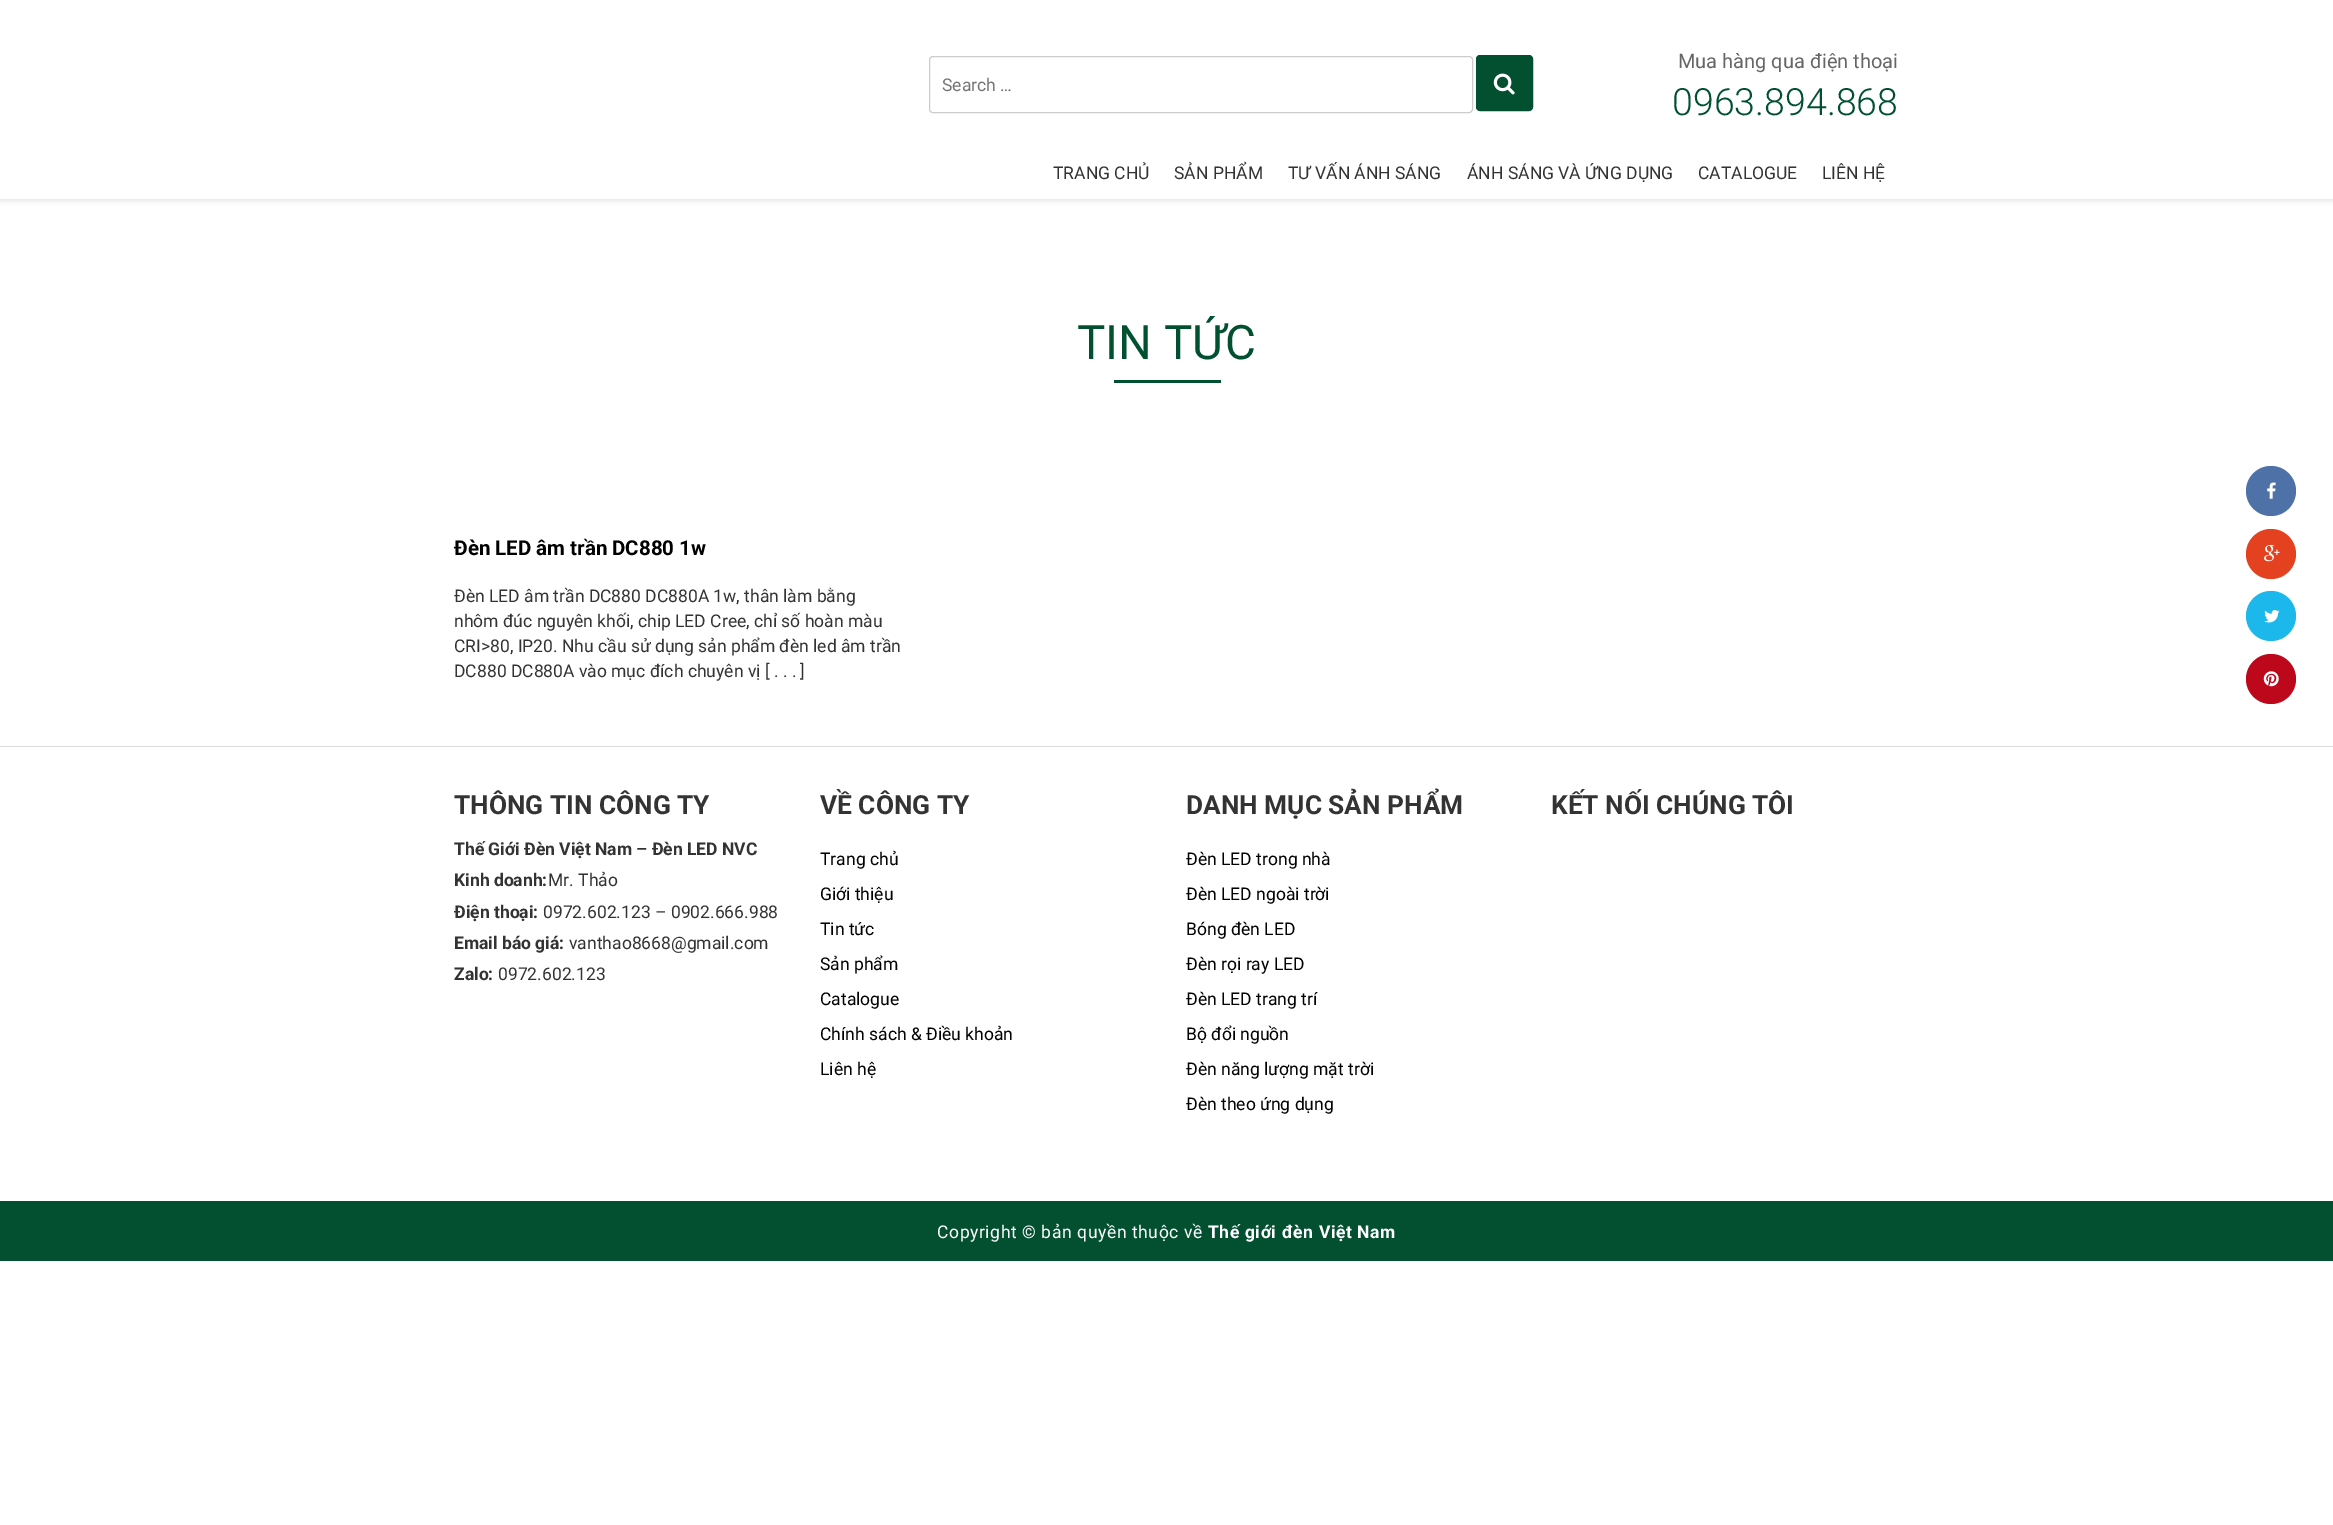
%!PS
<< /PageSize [2333 1525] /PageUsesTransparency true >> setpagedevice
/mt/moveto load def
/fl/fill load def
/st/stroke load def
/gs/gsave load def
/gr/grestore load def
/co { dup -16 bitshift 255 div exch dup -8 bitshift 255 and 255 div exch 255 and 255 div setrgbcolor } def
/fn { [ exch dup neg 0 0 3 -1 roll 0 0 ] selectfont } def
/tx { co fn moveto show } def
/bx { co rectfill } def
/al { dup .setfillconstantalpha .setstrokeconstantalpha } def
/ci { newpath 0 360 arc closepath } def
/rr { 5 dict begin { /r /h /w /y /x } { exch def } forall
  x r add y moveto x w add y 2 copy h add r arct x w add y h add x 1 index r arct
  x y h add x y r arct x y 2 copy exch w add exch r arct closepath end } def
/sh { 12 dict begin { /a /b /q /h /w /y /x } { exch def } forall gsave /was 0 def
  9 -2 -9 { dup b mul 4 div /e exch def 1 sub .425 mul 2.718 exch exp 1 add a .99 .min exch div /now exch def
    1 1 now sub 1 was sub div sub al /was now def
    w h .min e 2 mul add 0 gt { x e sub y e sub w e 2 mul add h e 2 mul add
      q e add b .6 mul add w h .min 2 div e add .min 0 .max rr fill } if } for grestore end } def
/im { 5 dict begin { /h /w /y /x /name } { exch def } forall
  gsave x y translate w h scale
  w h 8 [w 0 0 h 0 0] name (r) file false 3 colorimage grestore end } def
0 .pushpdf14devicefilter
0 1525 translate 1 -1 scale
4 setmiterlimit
0 0 2333 1525 16#FFFFFF bx
16#000000 co
0 3 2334 198 0 2.5 .1 sh
0 0 2333 199 16#FFFFFF bx
16#CCCCCC co
929.5 56.5 543 56 3.5 rr st
16#025030 co
1476.5 55.5 56 55 3.5 rr gs fl gr
st
(media/1.raw) 1493 73 22 22 im
1114 380 107 3 16#025030 bx
16#4E71A8 co
2271 491 25 ci fl
(media/2.raw) 2267 482 9 17 im
16#E3411F co
2271 554 25 ci fl
(media/3.raw) 2264 545 16 17 im
16#1CB7EB co
2271 616 25 ci fl
(media/4.raw) 2264 610 16 13 im
16#BD081C co
2271 679 25 ci fl
(media/5.raw) 2263 671 16 16 im
0 746 2333 1 16#DADCDB bx
0 1201 2333 60 16#025030 bx
(Search …) 942 91 /Roboto-Regular 17.5 16#757575 tx
(Mua hàng qua điện thoại) 1678 68 /Roboto-Regular 20 16#666666 tx
(0963.894.868) 1672 115 /Roboto-Light 37.5 16#015030 tx
(TRANG CHỦ) 1053 179 /Roboto-Regular 17.5 16#333333 tx
(SẢN PHẨM) 1174 179 /Roboto-Regular 17.5 16#333333 tx
(TƯ VẤN ÁNH SÁNG) 1288 179 /Roboto-Regular 17.5 16#333333 tx
(ÁNH SÁNG VÀ ỨNG DỤNG) 1467 179 /Roboto-Regular 17.5 16#333333 tx
(CATALOGUE) 1698 179 /Roboto-Regular 17.5 16#333333 tx
(LIÊN HỆ) 1822 179 /Roboto-Regular 17.5 16#333333 tx
(TIN TỨC) 1077 359 /Roboto-Regular 47.5 16#015030 tx
(Đèn LED âm trần DC880 1w) 454 555 /Roboto-Bold 20.5 16#000000 tx
(Đèn LED âm trần DC880 DC880A 1w, thân làm bằng) 454 602 /Roboto-Regular 17.5 16#333333 tx
(nhôm đúc nguyên khối, chip LED Cree, chỉ số hoàn màu) 454 627 /Roboto-Regular 17.5 16#333333 tx
(CRI>80, IP20. Nhu cầu sử dụng sản phẩm đèn led âm trần) 454 652 /Roboto-Regular 17.5 16#333333 tx
(DC880 DC880A vào mục đích chuyên vị [ . . . ]) 454 677 /Roboto-Regular 17.5 16#333333 tx
(THÔNG TIN CÔNG TY) 454 814 /Roboto-Bold 26.25 16#333333 tx
(Thế Giới Đèn Việt Nam – Đèn LED NVC) 454 855 /Roboto-Bold 17.5 16#333333 tx
(Kinh doanh:) 454 886 /Roboto-Bold 17.5 16#333333 tx
(Mr. Thảo) 548 886 /Roboto-Regular 17.5 16#333333 tx
(Điện thoại:) 454 918 /Roboto-Bold 17.5 16#333333 tx
(0972.602.123 – 0902.666.988) 543 918 /Roboto-Regular 17.5 16#333333 tx
(Email báo giá:) 454 949 /Roboto-Bold 17.5 16#333333 tx
(vanthao8668@gmail.com) 569 949 /Roboto-Regular 17.5 16#333333 tx
(Zalo:) 454 980 /Roboto-Bold 17.5 16#333333 tx
(0972.602.123) 498 980 /Roboto-Regular 17.5 16#333333 tx
(VỀ CÔNG TY) 820 814 /Roboto-Bold 26.25 16#333333 tx
(Trang chủ) 820 865 /Roboto-Regular 17.5 16#000000 tx
(Giới thiệu) 820 900 /Roboto-Regular 17.5 16#000000 tx
(Tin tức) 820 935 /Roboto-Regular 17.5 16#000000 tx
(Sản phẩm) 820 970 /Roboto-Regular 17.5 16#000000 tx
(Catalogue) 820 1005 /Roboto-Regular 17.5 16#000000 tx
(Chính sách & Điều khoản) 820 1040 /Roboto-Regular 17.5 16#000000 tx
(Liên hệ) 820 1075 /Roboto-Regular 17.5 16#000000 tx
(DANH MỤC SẢN PHẨM) 1186 814 /Roboto-Bold 26.25 16#333333 tx
(Đèn LED trong nhà) 1186 865 /Roboto-Regular 17.5 16#000000 tx
(Đèn LED ngoài trời) 1186 900 /Roboto-Regular 17.5 16#000000 tx
(Bóng đèn LED) 1186 935 /Roboto-Regular 17.5 16#000000 tx
(Đèn rọi ray LED) 1186 970 /Roboto-Regular 17.5 16#000000 tx
(Đèn LED trang trí) 1186 1005 /Roboto-Regular 17.5 16#000000 tx
(Bộ đổi nguồn) 1186 1040 /Roboto-Regular 17.5 16#000000 tx
(Đèn năng lượng mặt trời) 1186 1075 /Roboto-Regular 17.5 16#000000 tx
(Đèn theo ứng dụng) 1186 1110 /Roboto-Regular 17.5 16#000000 tx
(KẾT NỐI CHÚNG TÔI) 1551 814 /Roboto-Bold 26.25 16#333333 tx
/Roboto-Regular 17.5 fn
16#FFFFFF co
937 1238 mt .6 0 (Copyright © bản quyền thuộc về) ashow
/Roboto-Bold 17.5 fn
1208 1238 mt .6 0 (Thế giới đèn Việt Nam) ashow
.poppdf14devicefilter showpage
